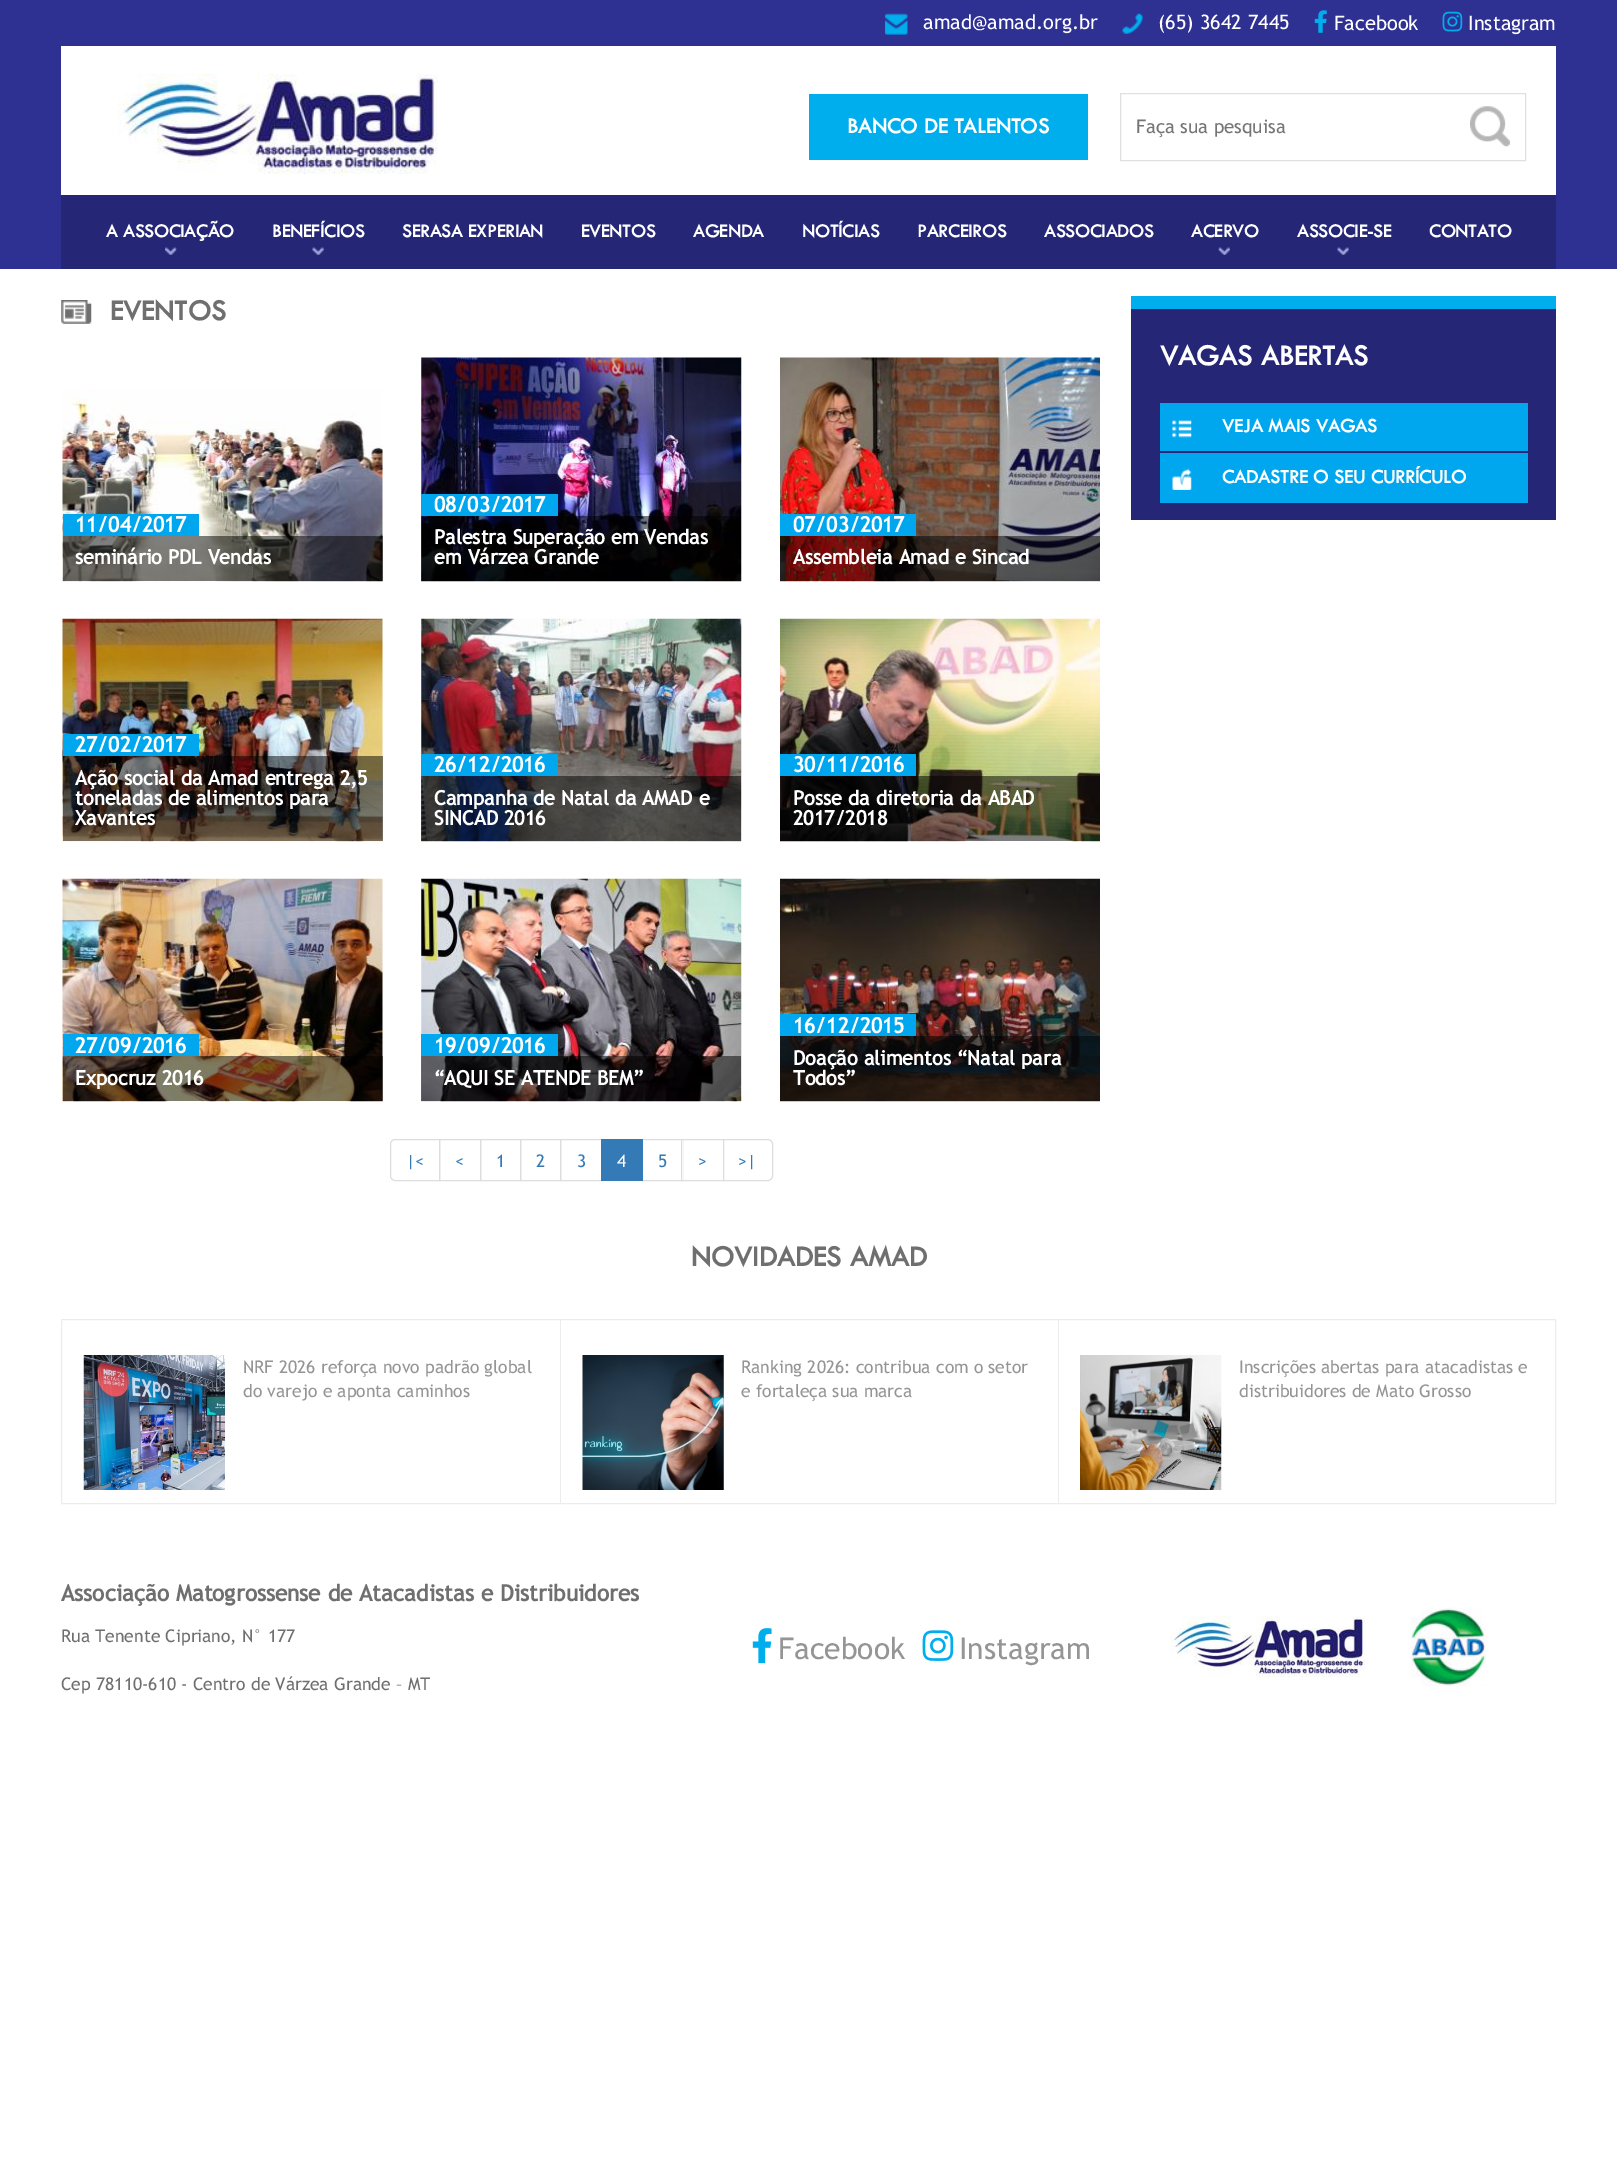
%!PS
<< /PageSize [1617 2174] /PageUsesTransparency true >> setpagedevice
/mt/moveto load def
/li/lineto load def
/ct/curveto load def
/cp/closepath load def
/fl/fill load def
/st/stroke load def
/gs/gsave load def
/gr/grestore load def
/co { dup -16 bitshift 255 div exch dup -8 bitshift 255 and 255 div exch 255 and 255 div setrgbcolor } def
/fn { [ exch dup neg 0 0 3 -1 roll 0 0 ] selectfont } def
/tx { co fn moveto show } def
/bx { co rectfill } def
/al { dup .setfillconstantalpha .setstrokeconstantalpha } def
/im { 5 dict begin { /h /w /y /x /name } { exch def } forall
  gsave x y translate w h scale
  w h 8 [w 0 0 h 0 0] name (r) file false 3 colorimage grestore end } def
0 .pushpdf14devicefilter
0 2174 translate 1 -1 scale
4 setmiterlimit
0 0 1617 2174 16#FFFFFF bx
0 0 1617 269 16#2E3092 bx
(media/1.raw) 885 13 23 22 im
(media/2.raw) 1122 13 21 21 im
(media/3.raw) 1314 10 13 23 im
(media/4.raw) 1442 11 21 21 im
61 46 1495 149 16#FFFFFF bx
(media/5.raw) 117 73 321 102 im
809 94 279 66 16#00AEEE bx
16#E0E0E0 co
1120.5 93.5 405 67 rectstroke
(media/6.raw) 1470 106 40 41 im
61 195 1495 74 16#252675 bx
(media/7.raw) 165 247 12 8 im
(media/8.raw) 312 247 12 8 im
(media/9.raw) 1218 247 12 8 im
(media/10.raw) 1337 247 12 8 im
(media/11.raw) 61 300 31 24 im
(media/12.raw) 62 390 321 192 im
63 514 136 22 16#00A6EE bx
0.5 al
63 536 320 45 16#000000 bx
1 al
(media/13.raw) 421 357 321 225 im
421 494 137 22 16#00A6EE bx
0.5 al
421 516 320 65 16#000000 bx
1 al
(media/14.raw) 780 357 320 225 im
780 514 136 22 16#00A6EE bx
0.5 al
780 536 320 45 16#000000 bx
1 al
(media/15.raw) 62 618 321 224 im
63 734 136 22 16#00A6EE bx
0.5 al
63 756 320 85 16#000000 bx
1 al
(media/16.raw) 421 618 321 224 im
421 754 137 22 16#00A6EE bx
0.5 al
421 776 320 65 16#000000 bx
1 al
(media/17.raw) 780 618 320 224 im
780 754 136 22 16#00A6EE bx
0.5 al
780 776 320 65 16#000000 bx
1 al
(media/18.raw) 62 878 321 224 im
63 1034 136 22 16#00A6EE bx
0.5 al
63 1056 320 45 16#000000 bx
1 al
(media/19.raw) 421 878 321 224 im
421 1034 137 22 16#00A6EE bx
0.5 al
421 1056 320 45 16#000000 bx
1 al
(media/20.raw) 780 878 320 224 im
780 1014 136 22 16#00A6EE bx
0.5 al
780 1036 320 65 16#000000 bx
1 al
16#DDDDDD co
395 1139.5 mt 439.5 1139.5 li 439.5 1180.5 li 395 1180.5 li 392.5 1180.5 390.5 1178.5 390.5 1176 ct 390.5 1144 li 390.5 1141.5 392.5 1139.5 395 1139.5 ct cp st
439.5 1139.5 41 41 rectstroke
480.5 1139.5 40 41 rectstroke
520.5 1139.5 40 41 rectstroke
560.5 1139.5 42 41 rectstroke
641.5 1139.5 41 41 rectstroke
601 1139 42 42 16#337AB7 bx
682 1140 1 40 16#FFFFFF bx
16#DDDDDD co
681.5 1139.5 42 41 rectstroke
16#FFFFFF co
723.5 1139.5 mt 768 1139.5 li 770.5 1139.5 772.5 1141.5 772.5 1144 ct 772.5 1176 li 772.5 1178.5 770.5 1180.5 768 1180.5 ct 723.5 1180.5 li cp gs fl gr
16#DDDDDD co
st
1131 309 425 211 16#252675 bx
1131 296 425 13 16#00AEEE bx
1160 403 368 48 16#00A6EE bx
(media/21.raw) 1172 420 20 18 im
1160 453 368 50 16#00A6EE bx
(media/22.raw) 1172 468 20 22 im
16#ECECEC co
61.5 1319.5 1494 184 rectstroke
(media/23.raw) 83 1355 142 135 im
560 1320 1 183 16#ECECEC bx
(media/24.raw) 582 1355 142 135 im
1058 1320 1 183 16#ECECEC bx
(media/25.raw) 1080 1355 142 135 im
(media/26.raw) 752 1628 20 36 im
(media/27.raw) 922 1630 32 31 im
(media/28.raw) 1170 1616 195 62 im
(media/29.raw) 1411 1607 75 80 im
(amad@amad.org.br) 923 29 /TrebuchetMS-Regular 20 16#FFFFFF tx
(\(65\) 3642 7445) 1158 29 /TrebuchetMS-Regular 20 16#FFFFFF tx
(Facebook) 1334 30 /TrebuchetMS-Regular 20 16#FFFFFF tx
(Instagram) 1468 30 /TrebuchetMS-Regular 20 16#FFFFFF tx
(BANCO DE TALENTOS) 847 133 /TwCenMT-Bold 22.5 16#FFFFFF tx
(Faça sua pesquisa) 1136 133 /TrebuchetMS-Regular 18.75 16#757575 tx
(A ASSOCIAÇÃO) 106 237 /TwCenMT-Bold 19.25 16#FFFFFF tx
(BENEFÍCIOS) 272 237 /TwCenMT-Bold 19.25 16#FFFFFF tx
(SERASA EXPERIAN) 402 237 /TwCenMT-Bold 19.25 16#FFFFFF tx
(EVENTOS) 581 237 /TwCenMT-Bold 19.25 16#FFFFFF tx
(AGENDA) 693 237 /TwCenMT-Bold 19.25 16#FFFFFF tx
(NOTÍCIAS) 802 237 /TwCenMT-Bold 19.25 16#FFFFFF tx
(PARCEIROS) 917 237 /TwCenMT-Bold 19.25 16#FFFFFF tx
(ASSOCIADOS) 1044 237 /TwCenMT-Bold 19.25 16#FFFFFF tx
(ACERVO) 1191 237 /TwCenMT-Bold 19.25 16#FFFFFF tx
(ASSOCIE-SE) 1297 237 /TwCenMT-Bold 19.25 16#FFFFFF tx
(CONTATO) 1429 237 /TwCenMT-Bold 19.25 16#FFFFFF tx
(EVENTOS) 110 320 /TwCenMT-Bold 30 16#6F6F6F tx
(11/04/2017) 75 532 /TrebuchetMS-Bold 21.25 16#FFFFFF tx
(seminário PDL Vendas) 75 564 /TrebuchetMS-Bold 20 16#FFFFFF tx
(08/03/2017) 434 512 /TrebuchetMS-Bold 21.25 16#FFFFFF tx
(Palestra Superação em Vendas) 434 544 /TrebuchetMS-Bold 20 16#FFFFFF tx
(em Várzea Grande) 434 564 /TrebuchetMS-Bold 20 16#FFFFFF tx
(07/03/2017) 793 532 /TrebuchetMS-Bold 21.25 16#FFFFFF tx
(Assembleia Amad e Sincad) 793 564 /TrebuchetMS-Bold 20 16#FFFFFF tx
(27/02/2017) 75 752 /TrebuchetMS-Bold 21.25 16#FFFFFF tx
(Ação social da Amad entrega 2,5) 75 785 /TrebuchetMS-Bold 20 16#FFFFFF tx
(toneladas de alimentos para) 75 805 /TrebuchetMS-Bold 20 16#FFFFFF tx
(Xavantes) 75 825 /TrebuchetMS-Bold 20 16#FFFFFF tx
(26/12/2016) 434 772 /TrebuchetMS-Bold 21.25 16#FFFFFF tx
(Campanha de Natal da AMAD e) 434 805 /TrebuchetMS-Bold 20 16#FFFFFF tx
(SINCAD 2016) 434 825 /TrebuchetMS-Bold 20 16#FFFFFF tx
(30/11/2016) 793 772 /TrebuchetMS-Bold 21.25 16#FFFFFF tx
(Posse da diretoria da ABAD) 793 805 /TrebuchetMS-Bold 20 16#FFFFFF tx
(2017/2018) 793 825 /TrebuchetMS-Bold 20 16#FFFFFF tx
(27/09/2016) 75 1053 /TrebuchetMS-Bold 21.25 16#FFFFFF tx
(Expocruz 2016) 75 1085 /TrebuchetMS-Bold 20 16#FFFFFF tx
(19/09/2016) 434 1053 /TrebuchetMS-Bold 21.25 16#FFFFFF tx
(“AQUI SE ATENDE BEM”) 434 1085 /TrebuchetMS-Bold 20 16#FFFFFF tx
(16/12/2015) 793 1033 /TrebuchetMS-Bold 21.25 16#FFFFFF tx
(Doação alimentos “Natal para) 793 1065 /TrebuchetMS-Bold 20 16#FFFFFF tx
(Todos”) 793 1085 /TrebuchetMS-Bold 20 16#FFFFFF tx
(|<) 406 1167 /TrebuchetMS-Regular 17.5 16#337AB7 tx
(<) 455 1167 /TrebuchetMS-Regular 17.5 16#337AB7 tx
(1) 496 1167 /TrebuchetMS-Regular 17.5 16#337AB7 tx
(2) 536 1167 /TrebuchetMS-Regular 17.5 16#337AB7 tx
(3) 577 1167 /TrebuchetMS-Regular 17.5 16#337AB7 tx
(4) 617 1167 /TrebuchetMS-Regular 17.5 16#FFFFFF tx
(5) 658 1167 /TrebuchetMS-Regular 17.5 16#337AB7 tx
(>) 698 1167 /TrebuchetMS-Regular 17.5 16#337AB7 tx
(>|) 738 1167 /TrebuchetMS-Regular 17.5 16#337AB7 tx
(VAGAS ABERTAS) 1160 365 /TwCenMT-Bold 30 16#FFFFFF tx
(VEJA MAIS VAGAS) 1222 432 /TwCenMT-Bold 20 16#FFFFFF tx
(CADASTRE O SEU CURRÍCULO) 1222 483 /TwCenMT-Bold 20 16#FFFFFF tx
(NOVIDADES AMAD) 691 1266 /TwCenMT-Bold 30 16#6F6F6F tx
(NRF 2026 reforça novo padrão global) 243 1373 /TrebuchetMS-Regular 17.5 16#959595 tx
(do varejo e aponta caminhos) 243 1397 /TrebuchetMS-Regular 17.5 16#959595 tx
(Ranking 2026: contribua com o setor) 741 1373 /TrebuchetMS-Regular 17.5 16#959595 tx
(e fortaleça sua marca) 741 1397 /TrebuchetMS-Regular 17.5 16#959595 tx
(Inscrições abertas para atacadistas e) 1239 1373 /TrebuchetMS-Regular 17.5 16#959595 tx
(distribuidores de Mato Grosso) 1239 1397 /TrebuchetMS-Regular 17.5 16#959595 tx
(Associação Matogrossense de Atacadistas e Distribuidores) 61 1601 /TrebuchetMS-Bold 22.5 16#6F6F6F tx
(Rua Tenente Cipriano, N° 177) 61 1642 /TrebuchetMS-Regular 17.5 16#6F6F6F tx
(Cep 78110-610 - Centro de Várzea Grande – MT) 61 1690 /TrebuchetMS-Regular 17.5 16#6F6F6F tx
(Facebook) 778 1659 /TrebuchetMS-Regular 30 16#959595 tx
(Instagram) 959 1659 /TrebuchetMS-Regular 30 16#959595 tx
.poppdf14devicefilter showpage
